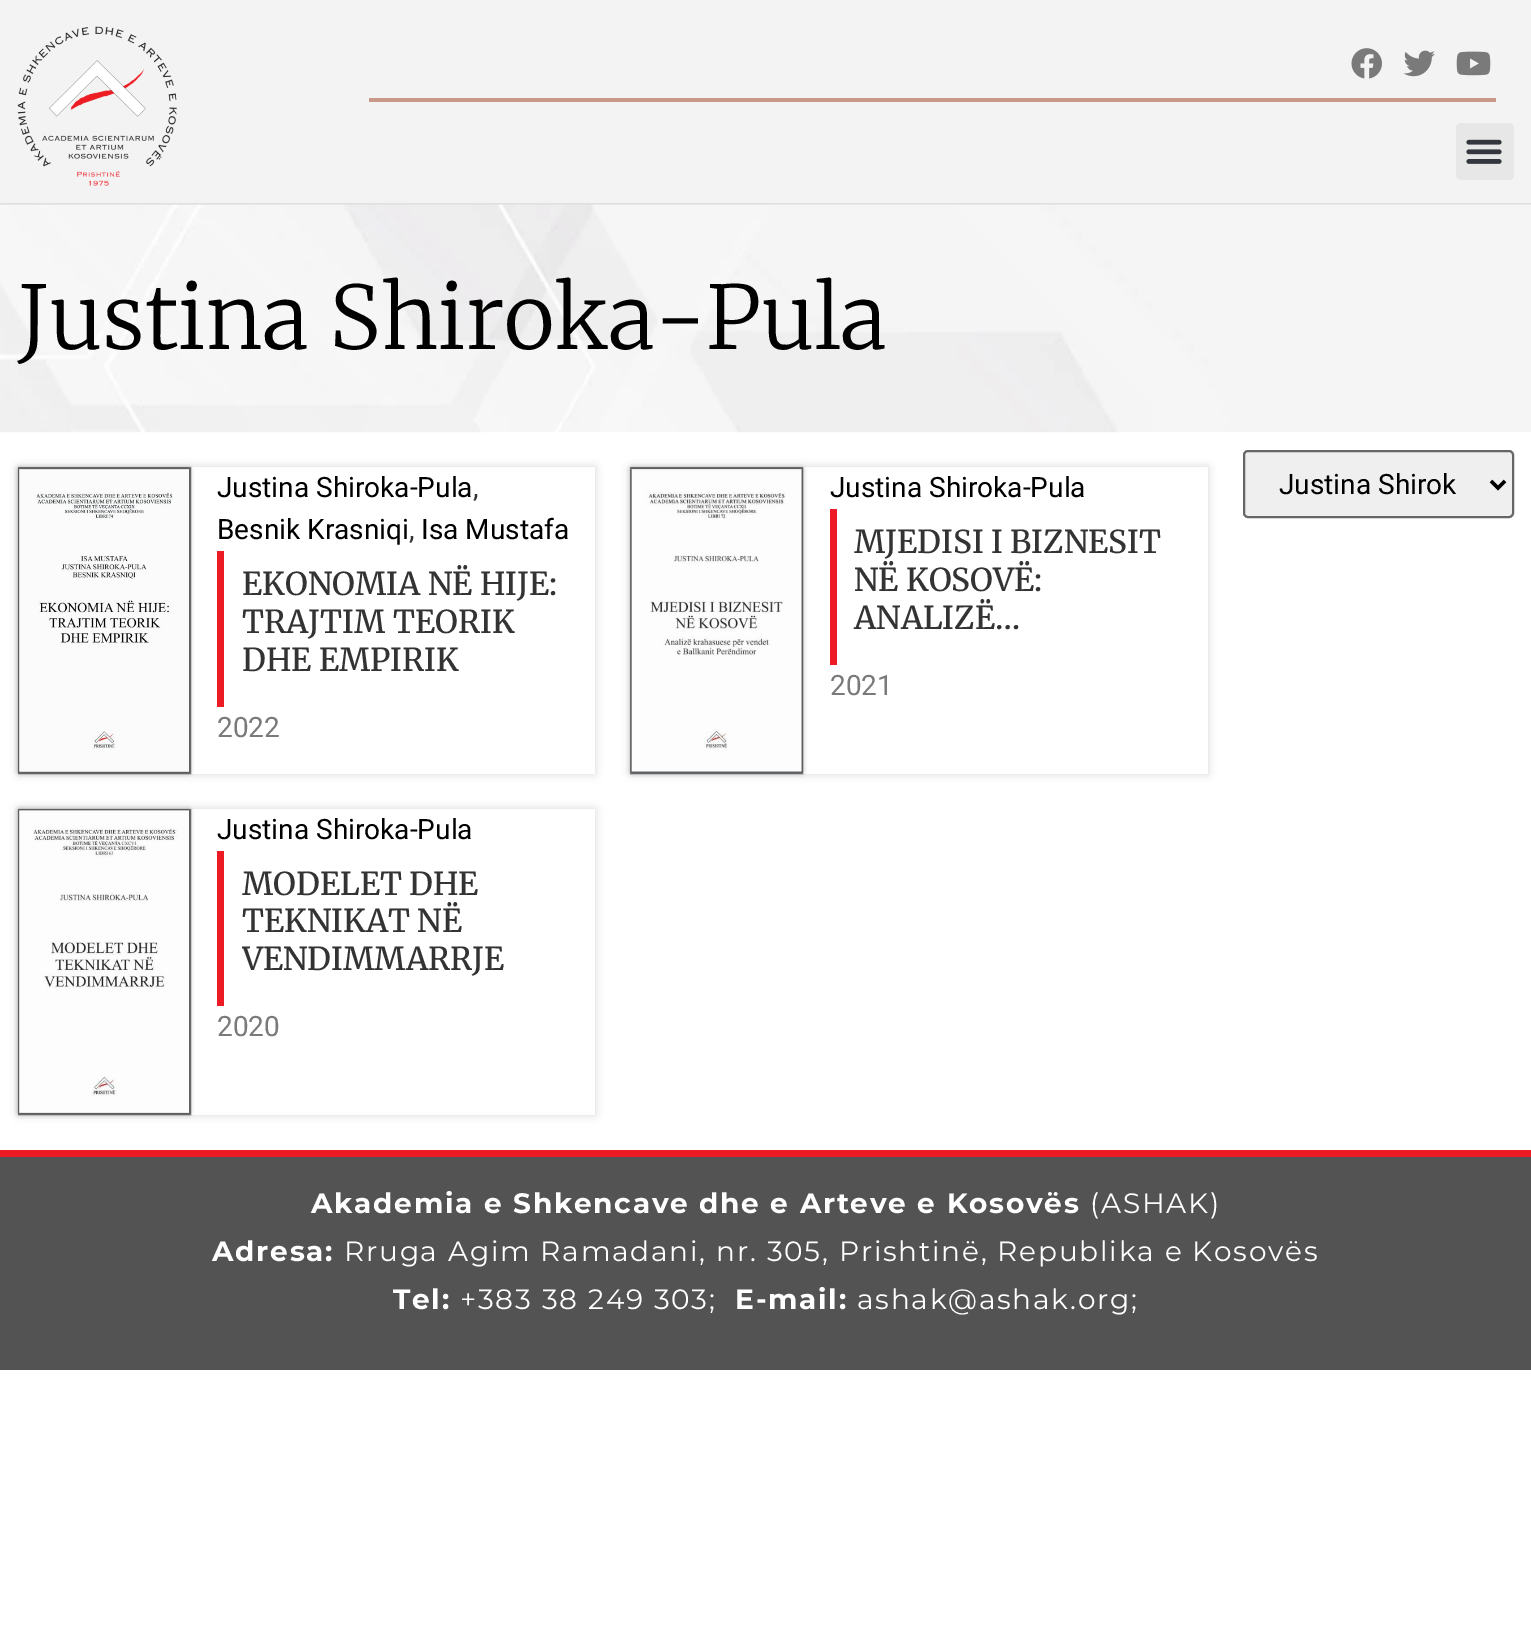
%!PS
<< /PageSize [1531 1628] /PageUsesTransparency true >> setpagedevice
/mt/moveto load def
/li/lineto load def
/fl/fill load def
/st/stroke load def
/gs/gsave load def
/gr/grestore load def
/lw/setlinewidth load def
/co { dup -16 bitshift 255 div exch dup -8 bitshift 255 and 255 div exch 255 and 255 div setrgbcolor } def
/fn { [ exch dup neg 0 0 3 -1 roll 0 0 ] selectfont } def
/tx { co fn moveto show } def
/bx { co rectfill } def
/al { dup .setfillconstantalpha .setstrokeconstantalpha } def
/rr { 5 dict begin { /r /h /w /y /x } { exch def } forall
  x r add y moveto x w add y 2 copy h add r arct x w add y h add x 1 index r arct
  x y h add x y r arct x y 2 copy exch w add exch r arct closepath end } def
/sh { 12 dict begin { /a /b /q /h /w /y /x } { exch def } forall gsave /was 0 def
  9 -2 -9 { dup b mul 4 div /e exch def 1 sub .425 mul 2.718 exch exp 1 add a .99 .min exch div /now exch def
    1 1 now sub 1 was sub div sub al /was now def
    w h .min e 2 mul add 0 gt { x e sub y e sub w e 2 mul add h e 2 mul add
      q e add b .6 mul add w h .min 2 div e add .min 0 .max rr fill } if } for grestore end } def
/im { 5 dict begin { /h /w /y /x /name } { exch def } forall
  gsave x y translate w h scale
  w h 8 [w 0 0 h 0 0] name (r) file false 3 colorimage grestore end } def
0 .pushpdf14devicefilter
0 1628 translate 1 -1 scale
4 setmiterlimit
0 0 1531 1628 16#FFFFFF bx
0 0 1531 203 16#F3F3F3 bx
0 203 1531 2 16#E0E0E0 bx
(media/1.raw) 17 26 160 160 im
(media/2.raw) 1351 48 31 31 im
(media/3.raw) 1403 50 32 27 im
(media/4.raw) 1456 51 35 25 im
369 98 1127 4 16#C8988A bx
16#E7E7E7 co
1456 123 58 57 5 rr fl
(media/5.raw) 1466 139 36 25 im
(media/6.raw) 0 204 1531 229 im
16#000000 co
18 467 577 307 0 4.5 .15 sh
20 467 575 307 16#FFFFFF bx
16#7A7A7A co
2 lw
19 468 171 305 rectstroke
16#000000 co
19 469 170 303 0 2.5 .5 sh
(media/7.raw) 19 469 170 303 im
217 551 7 156 16#ED1C24 bx
16#000000 co
630 467 578 307 0 4.5 .15 sh
632 467 576 307 16#FFFFFF bx
16#7A7A7A co
631 468 171 305 rectstroke
16#000000 co
632 469 170 303 0 2.5 .5 sh
(media/8.raw) 631 469 171 303 im
830 509 7 156 16#ED1C24 bx
16#000000 co
18 809 577 306 0 4.5 .15 sh
191 809 404 306 16#FFFFFF bx
16#7A7A7A co
19 810 171 304 rectstroke
16#000000 co
19 810 170 303 0 2.5 .5 sh
(media/9.raw) 19 810 170 303 im
217 851 7 155 16#ED1C24 bx
16#EFEFEF co
1244 451 269 66 4 rr gs fl gr
16#666666 co
st
16#000000 co
3.5 lw
1491 481 mt 1498 488 li 1505 481 li st
0 1157 1531 213 16#535353 bx
0 1150 1531 7 16#ED1C24 bx
(Justina Shiroka-Pula) 18 349 /Merriweather-Light 87.5 16#000000 tx
(Justina Shiroka-Pula) 217 497 /Roboto-Regular 28 16#000000 tx
(,) 473 497 /Roboto-Regular 28 16#333333 tx
(Besnik Krasniqi) 217 539 /Roboto-Regular 28 16#000000 tx
(,) 409 539 /Roboto-Regular 28 16#333333 tx
(Isa Mustafa) 421 539 /Roboto-Regular 28 16#000000 tx
(EKONOMIA NË HIJE:) 242 595 /Merriweather-Medium 31.5 16#333333 tx
(TRAJTIM TEORIK) 242 633 /Merriweather-Medium 31.5 16#333333 tx
(DHE EMPIRIK) 242 671 /Merriweather-Medium 31.5 16#333333 tx
(2022) 217 737 /Roboto-Regular 28 16#7A7A7A tx
(Justina Shiroka-Pula) 830 497 /Roboto-Regular 28 16#000000 tx
(MJEDISI I BIZNESIT) 854 553 /Merriweather-Medium 31.5 16#333333 tx
(NË KOSOVË:) 854 591 /Merriweather-Medium 31.5 16#333333 tx
(ANALIZË…) 854 629 /Merriweather-Medium 31.5 16#333333 tx
(2021) 830 695 /Roboto-Regular 28 16#7A7A7A tx
(Justina Shiroka-Pula) 217 839 /Roboto-Regular 28 16#000000 tx
(MODELET DHE) 242 895 /Merriweather-Medium 31.5 16#333333 tx
(TEKNIKAT NË) 242 932 /Merriweather-Medium 31.5 16#333333 tx
gs
242 865 327 113 rectclip
(VENDIMMARRJE) 242 970 /Merriweather-Medium 31.5 16#333333 tx
gr
(2020) 217 1036 /Roboto-Regular 28 16#7A7A7A tx
(Justina Shirok) 1279 494 /Roboto-Regular 28 16#000000 tx
/Montserrat-Bold 28 fn
16#FFFFFF co
311 1213 mt 1.75 0 (Akademia e Shkencave dhe e Arteve e Kosovës) ashow
/Montserrat-Regular 28 fn
1090 1213 mt 1.75 0 (\(ASHAK\)) ashow
/Montserrat-Bold 28 fn
212 1261 mt 1.75 0 (Adresa:) ashow
/Montserrat-Regular 28 fn
344 1261 mt 1.75 0 (Rruga Agim Ramadani, nr. 305, Prishtinë, Republika e Kosovës) ashow
/Montserrat-Bold 28 fn
393 1309 mt 1.75 0 (Tel:) ashow
/Montserrat-Regular 28 fn
460 1309 mt 1.75 0 (+383 38 249 303;) ashow
/Montserrat-Bold 28 fn
735 1309 mt 1.75 0 (E-mail:) ashow
/Montserrat-Regular 28 fn
857 1309 mt 1.75 0 (ashak@ashak.org;) ashow
.poppdf14devicefilter showpage
